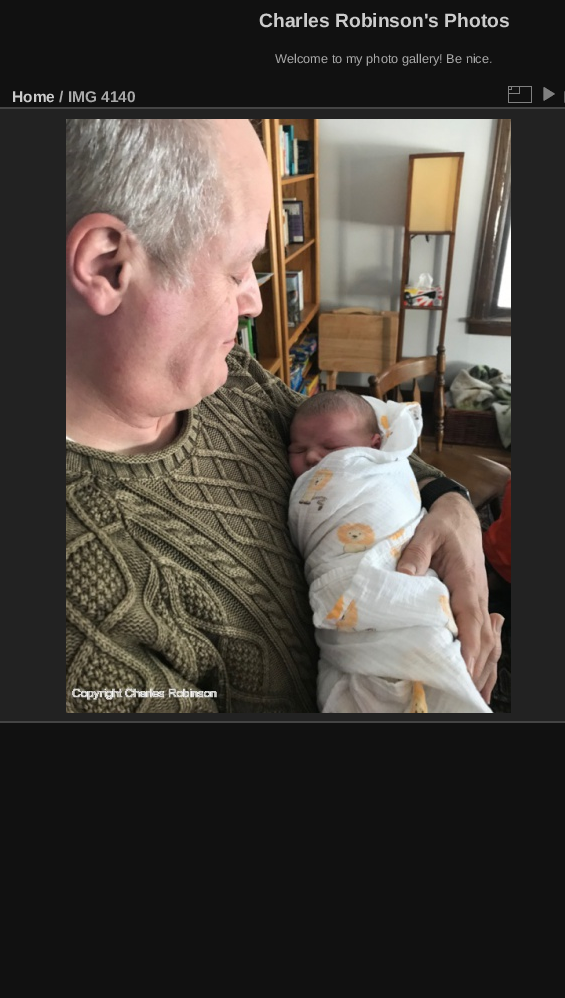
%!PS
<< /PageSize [565 998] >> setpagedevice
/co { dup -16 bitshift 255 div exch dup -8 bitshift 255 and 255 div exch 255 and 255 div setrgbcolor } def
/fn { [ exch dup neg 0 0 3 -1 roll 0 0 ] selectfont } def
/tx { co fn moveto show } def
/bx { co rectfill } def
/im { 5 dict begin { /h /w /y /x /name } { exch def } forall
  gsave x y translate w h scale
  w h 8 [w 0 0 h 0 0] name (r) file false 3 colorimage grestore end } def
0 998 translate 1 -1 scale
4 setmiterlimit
0 0 565 998 16#111111 bx
0 109 565 612 16#222222 bx
0 721 565 2 16#444444 bx
0 107 565 2 16#444444 bx
(media/1.raw) 508 86 24 17 im
(media/2.raw) 543 87 12 14 im
(media/3.raw) 564 91 1 12 im
(media/4.raw) 66 119 445 594 im
(Charles Robinson's Photos) 259 27 /LiberationSans-Bold 19.25 16#CCCCCC tx
(Welcome to my photo gallery! Be nice.) 275 63 /LiberationSans-Regular 12.75 16#AAAAAA tx
(Home) 12 102 /LiberationSans-Bold 15.5 16#CCCCCC tx
(/ IMG 4140) 59 102 /LiberationSans-Bold 15.5 16#AAAAAA tx
showpage
